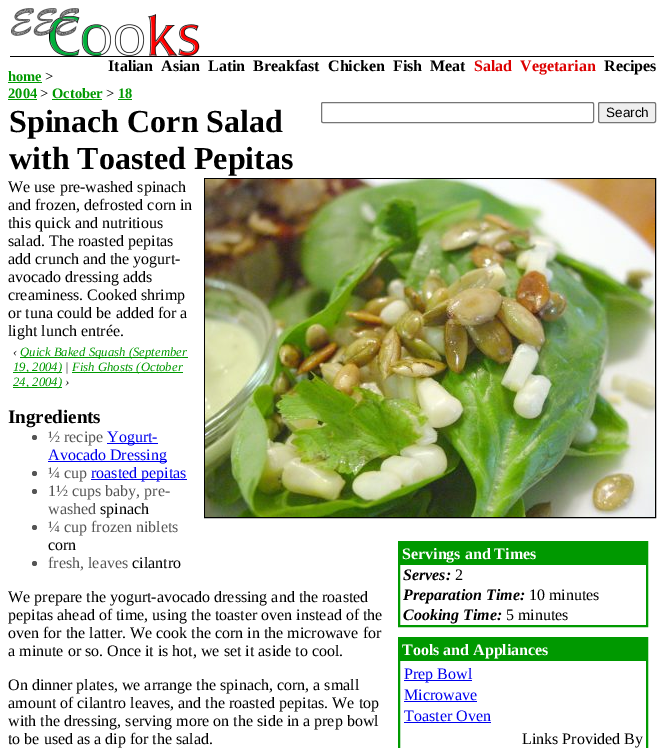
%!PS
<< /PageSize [664 748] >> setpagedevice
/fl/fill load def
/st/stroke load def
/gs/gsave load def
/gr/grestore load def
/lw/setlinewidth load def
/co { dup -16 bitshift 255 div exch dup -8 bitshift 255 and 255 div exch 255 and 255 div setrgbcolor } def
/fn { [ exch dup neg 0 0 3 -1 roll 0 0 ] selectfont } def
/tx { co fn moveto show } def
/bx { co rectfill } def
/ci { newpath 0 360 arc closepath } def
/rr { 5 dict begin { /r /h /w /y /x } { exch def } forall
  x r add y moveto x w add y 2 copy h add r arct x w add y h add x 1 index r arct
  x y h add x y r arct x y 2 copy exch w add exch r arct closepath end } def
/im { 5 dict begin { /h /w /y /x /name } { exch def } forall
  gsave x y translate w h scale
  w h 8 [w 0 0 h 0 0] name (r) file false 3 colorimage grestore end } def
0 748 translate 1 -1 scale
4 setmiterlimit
0 0 664 748 16#FFFFFF bx
10 56 644 1 16#000000 bx
(media/1.raw) 11 8 189 48 im
8 82 34 1 16#009900 bx
8 99 29 1 16#009900 bx
52 99 50 1 16#009900 bx
118 99 14 1 16#009900 bx
16#767676 co
321.5 102.5 272 20 1.5 rr st
16#EFEFEF co
598.5 102.5 57 20 1.5 rr gs fl gr
16#767676 co
st
16#000000 co
204.5 178.5 451 339 rectstroke
(media/2.raw) 205 179 450 338 im
20 357 168 1 16#009900 bx
13 372 49 1 16#009900 bx
72 372 111 1 16#009900 bx
13 387 49 1 16#009900 bx
16#555555 co
34.5 437.5 2.5 ci fl
107 443 51 1 16#0000EE bx
48 461 119 1 16#0000EE bx
16#555555 co
34.5 473.5 2.5 ci fl
91 479 96 1 16#0000EE bx
16#555555 co
34.5 491.5 2.5 ci fl
34.5 527.5 2.5 ci fl
34.5 563.5 2.5 ci fl
16#009900 co
2 lw
399 542 248 84 rectstroke
400 543 246 22 16#009900 bx
399 638 248 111 rectstroke
400 639 246 22 16#009900 bx
404 680 68 1 16#0000EE bx
404 701 73 1 16#0000EE bx
404 722 87 1 16#0000EE bx
(Italian) 108 71 /LiberationSerif-Bold 16 16#000000 tx
(Asian) 161 71 /LiberationSerif-Bold 16 16#000000 tx
(Latin) 208 71 /LiberationSerif-Bold 16 16#000000 tx
(Breakfast) 253 71 /LiberationSerif-Bold 16 16#000000 tx
(Chicken) 328 71 /LiberationSerif-Bold 16 16#000000 tx
(Fish) 393 71 /LiberationSerif-Bold 16 16#000000 tx
(Meat) 430 71 /LiberationSerif-Bold 16 16#000000 tx
(Salad) 474 71 /LiberationSerif-Bold 16 16#DD0000 tx
(Vegetarian) 520 71 /LiberationSerif-Bold 16 16#DD0000 tx
(Recipes) 604 71 /LiberationSerif-Bold 16 16#000000 tx
(home) 8 81 /LiberationSerif-Bold 14.5 16#009900 tx
(>) 45 81 /LiberationSerif-Regular 14.5 16#000000 tx
(2004) 8 98 /LiberationSerif-Bold 14.5 16#009900 tx
(>) 40 98 /LiberationSerif-Regular 14.5 16#000000 tx
(October) 52 98 /LiberationSerif-Bold 14.5 16#009900 tx
(>) 106 98 /LiberationSerif-Regular 14.5 16#000000 tx
(18) 118 98 /LiberationSerif-Bold 14.5 16#009900 tx
(Spinach Corn Salad) 9 132 /LiberationSerif-Bold 32 16#000000 tx
(with Toasted Pepitas) 9 169 /LiberationSerif-Bold 32 16#000000 tx
(Search) 606 117 /LiberationSans-Regular 13.5 16#000000 tx
(We use pre-washed spinach) 8 192 /LiberationSerif-Regular 16 16#000000 tx
(and frozen, defrosted corn in) 8 210 /LiberationSerif-Regular 16 16#000000 tx
(this quick and nutritious) 8 228 /LiberationSerif-Regular 16 16#000000 tx
(salad. The roasted pepitas) 8 246 /LiberationSerif-Regular 16 16#000000 tx
(add crunch and the yogurt-) 8 264 /LiberationSerif-Regular 16 16#000000 tx
(avocado dressing adds) 8 282 /LiberationSerif-Regular 16 16#000000 tx
(creaminess. Cooked shrimp) 8 300 /LiberationSerif-Regular 16 16#000000 tx
(or tuna could be added for a) 8 318 /LiberationSerif-Regular 16 16#000000 tx
(light lunch entrée.) 8 336 /LiberationSerif-Regular 16 16#000000 tx
(‹) 13 356 /LiberationSerif-Italic 12.75 16#000000 tx
(Quick Baked Squash \(September) 20 356 /LiberationSerif-Italic 12.75 16#009900 tx
(19, 2004\)) 13 371 /LiberationSerif-Italic 12.75 16#009900 tx
(|) 65 371 /LiberationSerif-Italic 12.75 16#000000 tx
(Fish Ghosts \(October) 72 371 /LiberationSerif-Italic 12.75 16#009900 tx
(24, 2004\)) 13 386 /LiberationSerif-Italic 12.75 16#009900 tx
(›) 65 386 /LiberationSerif-Italic 12.75 16#000000 tx
(Ingredients) 8 423 /LiberationSerif-Bold 19 16#000000 tx
(½ recipe) 48 442 /LiberationSerif-Regular 16 16#555555 tx
(Yogurt-) 107 442 /LiberationSerif-Regular 16 16#0000EE tx
(Avocado Dressing) 48 460 /LiberationSerif-Regular 16 16#0000EE tx
(¼ cup) 48 478 /LiberationSerif-Regular 16 16#555555 tx
(roasted pepitas) 91 478 /LiberationSerif-Regular 16 16#0000EE tx
(1½ cups baby, pre-) 48 496 /LiberationSerif-Regular 16 16#555555 tx
(washed) 48 514 /LiberationSerif-Regular 16 16#555555 tx
(spinach) 100 514 /LiberationSerif-Regular 16 16#000000 tx
(¼ cup frozen niblets) 48 532 /LiberationSerif-Regular 16 16#555555 tx
(corn) 48 550 /LiberationSerif-Regular 16 16#000000 tx
(fresh, leaves) 48 568 /LiberationSerif-Regular 16 16#555555 tx
(cilantro) 132 568 /LiberationSerif-Regular 16 16#000000 tx
(We prepare the yogurt-avocado dressing and the roasted) 8 602 /LiberationSerif-Regular 16 16#000000 tx
(pepitas ahead of time, using the toaster oven instead of the) 8 620 /LiberationSerif-Regular 16 16#000000 tx
(oven for the latter. We cook the corn in the microwave for) 8 638 /LiberationSerif-Regular 16 16#000000 tx
(a minute or so. Once it is hot, we set it aside to cool.) 8 656 /LiberationSerif-Regular 16 16#000000 tx
(On dinner plates, we arrange the spinach, corn, a small) 8 690 /LiberationSerif-Regular 16 16#000000 tx
(amount of cilantro leaves, and the roasted pepitas. We top) 8 708 /LiberationSerif-Regular 16 16#000000 tx
(with the dressing, serving more on the side in a prep bowl) 8 726 /LiberationSerif-Regular 16 16#000000 tx
(to be used as a dip for the salad.) 8 744 /LiberationSerif-Regular 16 16#000000 tx
(Servings and Times) 402 559 /LiberationSerif-Bold 16 16#FFFFFF tx
(Serves:) 403 580 /LiberationSerif-BoldItalic 16 16#000000 tx
(2) 455 580 /LiberationSerif-Regular 16 16#000000 tx
(Preparation Time:) 403 600 /LiberationSerif-BoldItalic 16 16#000000 tx
(10 minutes) 529 600 /LiberationSerif-Regular 16 16#000000 tx
(Cooking Time:) 403 620 /LiberationSerif-BoldItalic 16 16#000000 tx
(5 minutes) 506 620 /LiberationSerif-Regular 16 16#000000 tx
(Tools and Appliances) 402 655 /LiberationSerif-Bold 16 16#FFFFFF tx
(Prep Bowl) 404 679 /LiberationSerif-Regular 16 16#0000EE tx
(Microwave) 404 700 /LiberationSerif-Regular 16 16#0000EE tx
(Toaster Oven) 404 721 /LiberationSerif-Regular 16 16#0000EE tx
(Links Provided By) 522 744 /LiberationSerif-Regular 16 16#000000 tx
showpage
